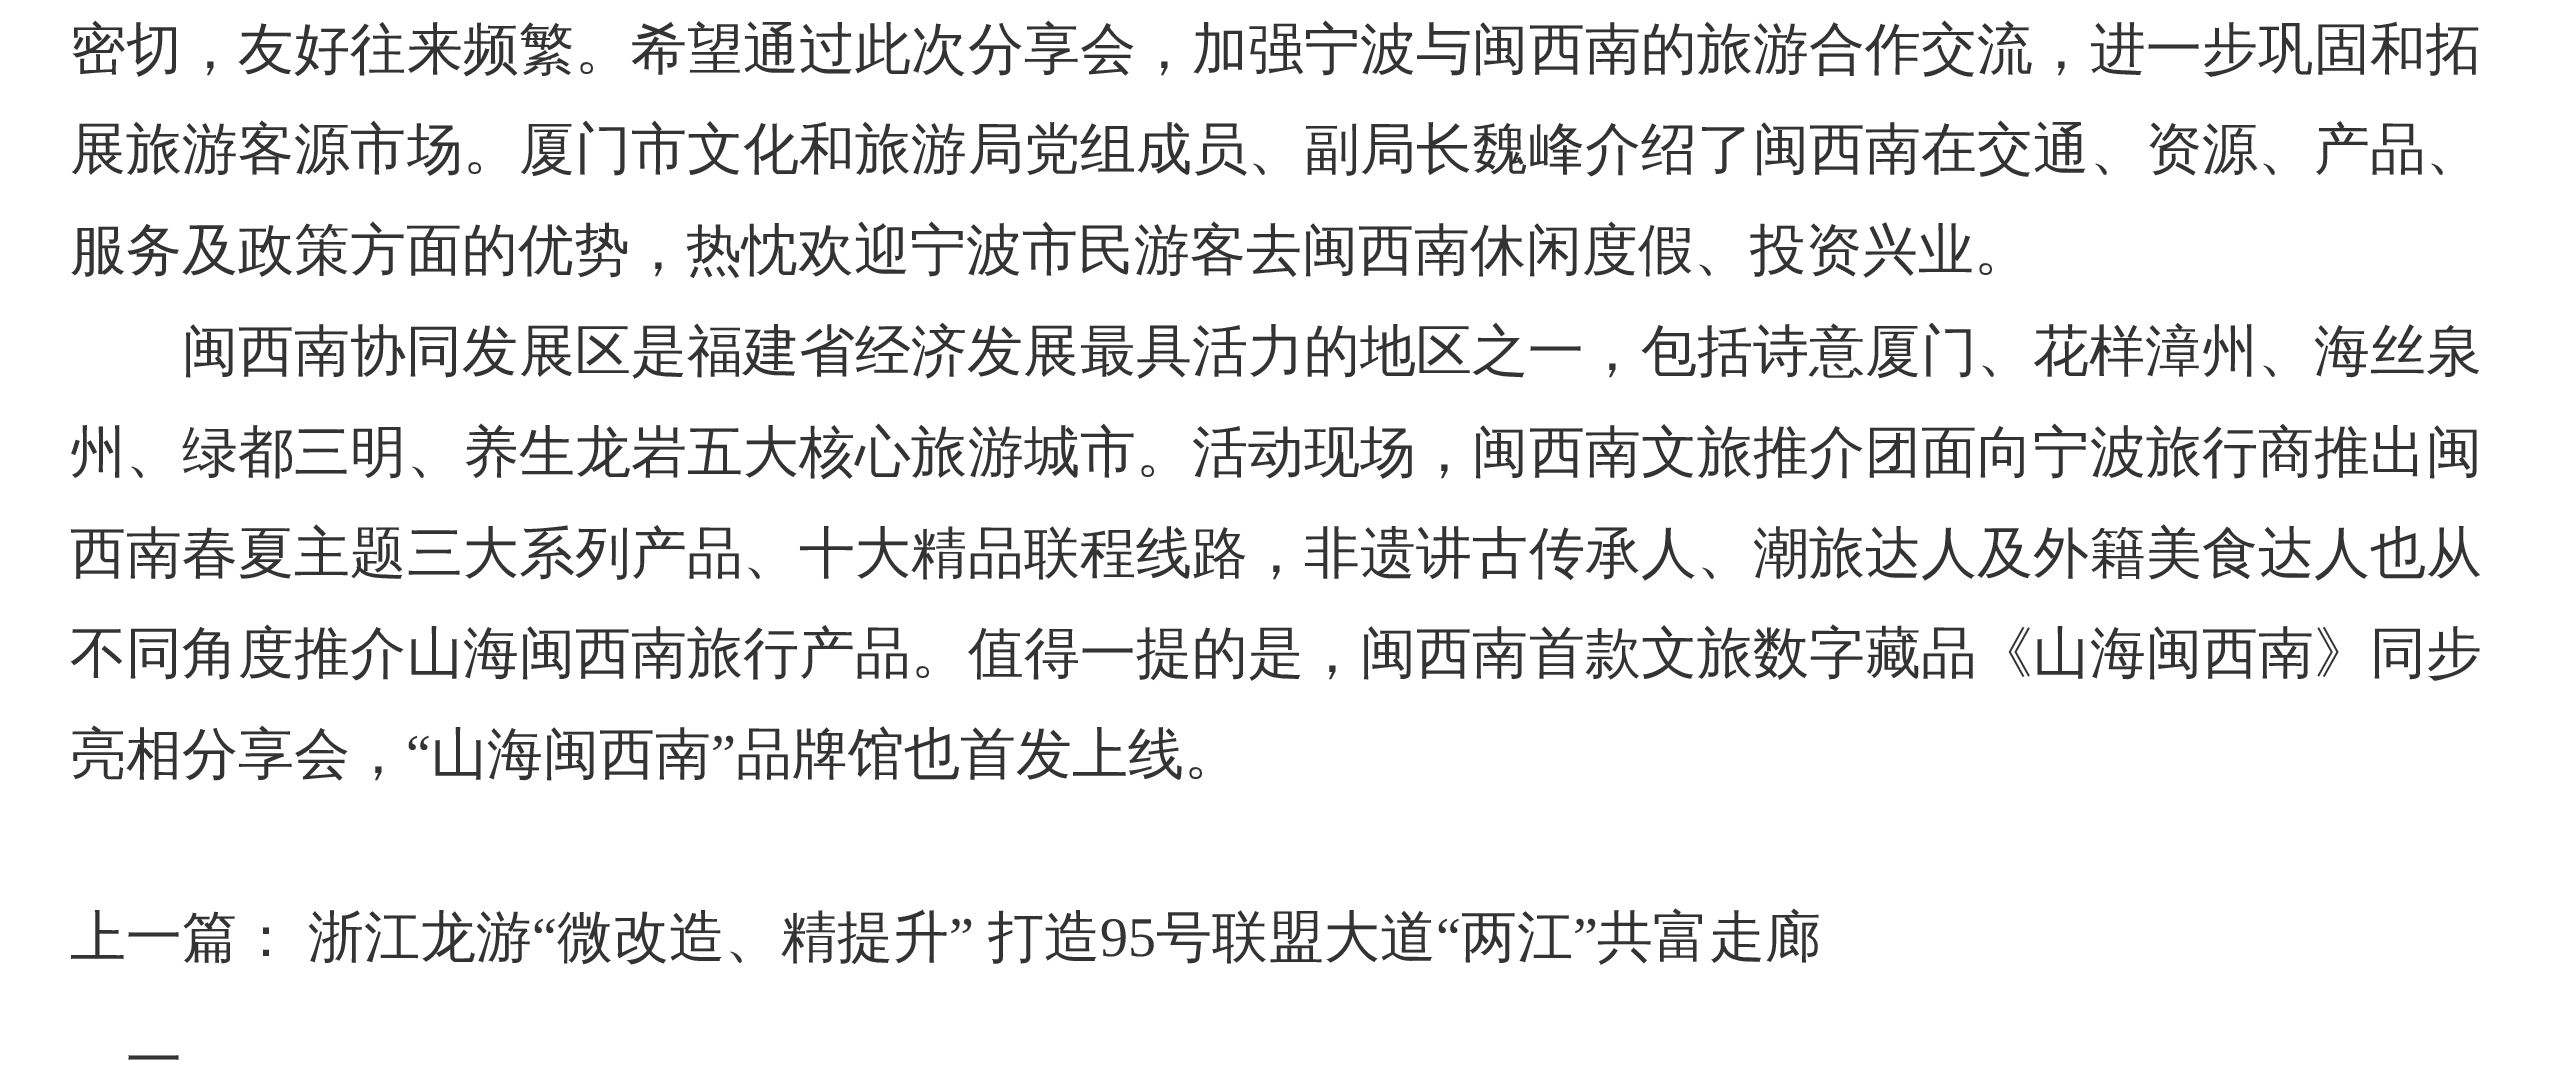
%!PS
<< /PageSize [2549 1065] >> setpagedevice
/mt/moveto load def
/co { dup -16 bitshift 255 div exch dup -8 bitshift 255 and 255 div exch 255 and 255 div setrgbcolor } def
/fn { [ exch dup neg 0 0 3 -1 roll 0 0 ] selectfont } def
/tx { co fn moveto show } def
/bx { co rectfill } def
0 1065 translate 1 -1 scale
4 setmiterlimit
0 0 2549 1065 16#FFFFFF bx
/WenQuanYiZenHei-Medium 56 fn
16#333333 co
70 68 mt .1 0 (密切，友好往来频繁。希望通过此次分享会，加强宁波与闽西南的旅游合作交流，进一步巩固和拓) ashow
70 168 mt .1 0 (展旅游客源市场。厦门市文化和旅游局党组成员、副局长魏峰介绍了闽西南在交通、资源、产品、) ashow
(服务及政策方面的优势，热忱欢迎宁波市民游客去闽西南休闲度假、投资兴业。) 70 269 /WenQuanYiZenHei-Medium 56 16#333333 tx
182 370 mt .1 0 (闽西南协同发展区是福建省经济发展最具活力的地区之一，包括诗意厦门、花样漳州、海丝泉) ashow
70 471 mt .1 0 (州、绿都三明、养生龙岩五大核心旅游城市。活动现场，闽西南文旅推介团面向宁波旅行商推出闽) ashow
70 572 mt .1 0 (西南春夏主题三大系列产品、十大精品联程线路，非遗讲古传承人、潮旅达人及外籍美食达人也从) ashow
70 672 mt .1 0 (不同角度推介山海闽西南旅行产品。值得一提的是，闽西南首款文旅数字藏品《山海闽西南》同步) ashow
(亮相分享会，) 70 773 /WenQuanYiZenHei-Medium 56 16#333333 tx
(“) 406 773 /LiberationSerif-Regular 56 16#333333 tx
(山海闽西南) 431 773 /WenQuanYiZenHei-Medium 56 16#333333 tx
(”) 711 773 /LiberationSerif-Regular 56 16#333333 tx
(品牌馆也首发上线。) 736 773 /WenQuanYiZenHei-Medium 56 16#333333 tx
(上一篇：) 70 956 /WenQuanYiZenHei-Medium 56 16#333333 tx
(浙江龙游) 308 956 /WenQuanYiZenHei-Medium 56 16#333333 tx
(“) 532 956 /LiberationSerif-Regular 56 16#333333 tx
(微改造、精提升) 557 956 /WenQuanYiZenHei-Medium 56 16#333333 tx
(”) 949 956 /LiberationSerif-Regular 56 16#333333 tx
(打造) 988 956 /WenQuanYiZenHei-Medium 56 16#333333 tx
(95) 1100 956 /LiberationSerif-Regular 56 16#333333 tx
(号联盟大道) 1156 956 /WenQuanYiZenHei-Medium 56 16#333333 tx
(“) 1436 956 /LiberationSerif-Regular 56 16#333333 tx
(两江) 1461 956 /WenQuanYiZenHei-Medium 56 16#333333 tx
(”) 1573 956 /LiberationSerif-Regular 56 16#333333 tx
(共富走廊) 1597 956 /WenQuanYiZenHei-Medium 56 16#333333 tx
(一) 126 1079 /WenQuanYiZenHei-Medium 56 16#333333 tx
showpage
